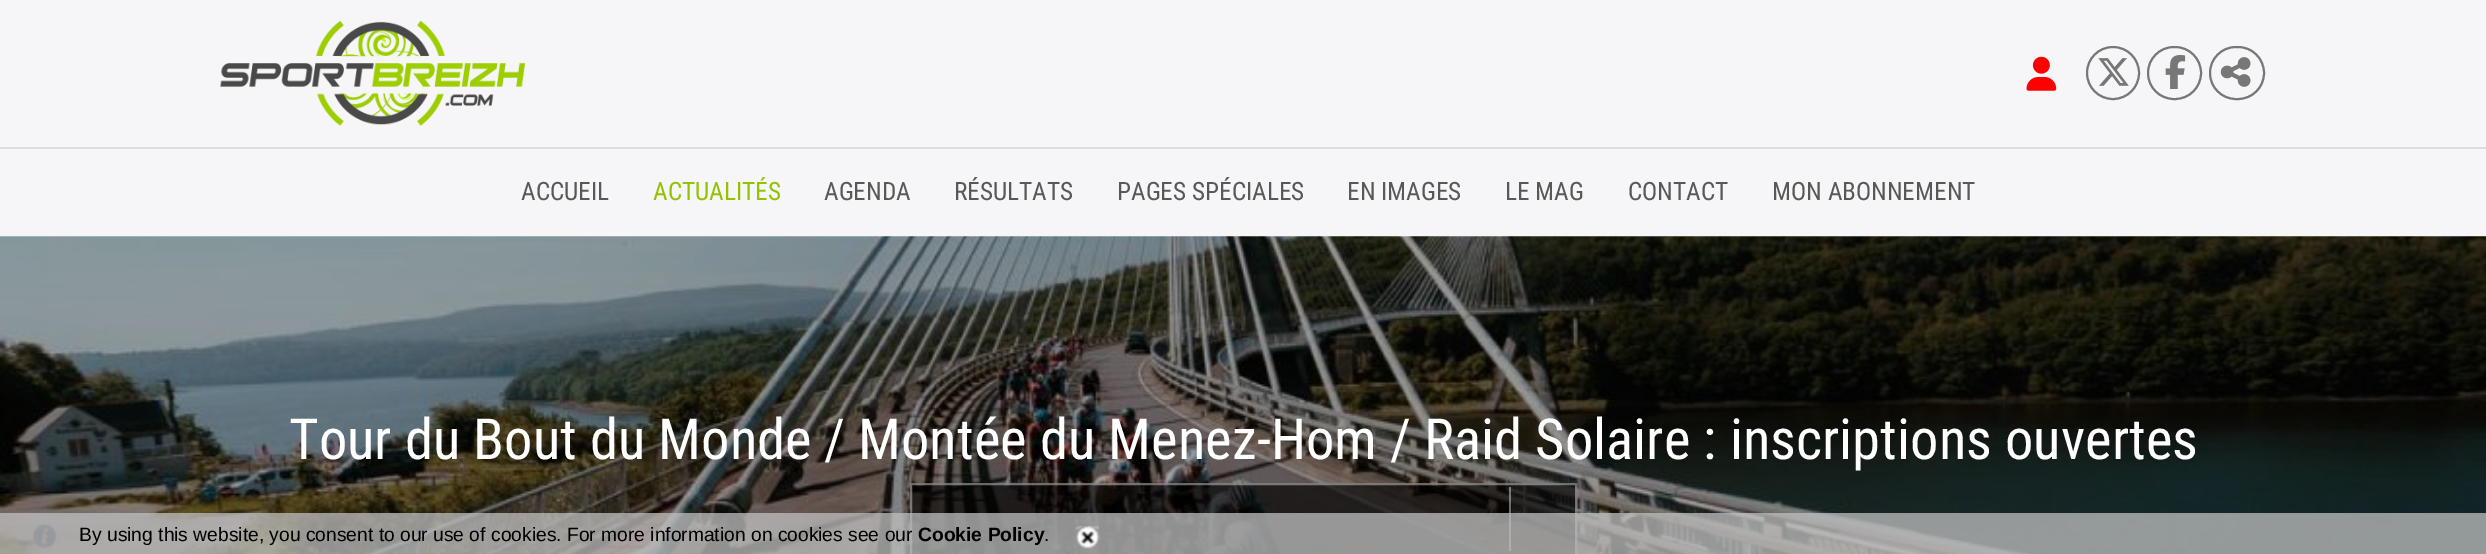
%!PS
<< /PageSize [2486 554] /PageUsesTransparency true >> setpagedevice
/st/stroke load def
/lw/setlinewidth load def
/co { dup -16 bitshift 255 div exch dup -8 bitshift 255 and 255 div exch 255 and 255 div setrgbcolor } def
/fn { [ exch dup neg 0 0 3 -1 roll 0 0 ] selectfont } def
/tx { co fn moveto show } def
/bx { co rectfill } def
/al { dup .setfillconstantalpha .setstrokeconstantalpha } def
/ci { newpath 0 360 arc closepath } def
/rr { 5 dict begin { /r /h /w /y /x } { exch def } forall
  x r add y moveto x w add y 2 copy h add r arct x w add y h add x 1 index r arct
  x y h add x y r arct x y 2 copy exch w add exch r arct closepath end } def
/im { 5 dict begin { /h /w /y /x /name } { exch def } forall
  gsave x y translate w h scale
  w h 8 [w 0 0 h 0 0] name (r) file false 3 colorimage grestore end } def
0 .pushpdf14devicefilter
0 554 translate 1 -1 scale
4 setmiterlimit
0 0 2486 554 16#FFFFFF bx
0 0 2486 147 16#F6F6F8 bx
(media/1.raw) 220 20 305 106 im
(media/2.raw) 2026 56 31 35 im
16#777777 co
2 lw
2113 73 26 ci st
(media/3.raw) 2098 58 31 28 im
2148 47 53 52 26 rr st
(media/4.raw) 2165 55 21 34 im
2210 47 54 52 26 rr st
(media/5.raw) 2220 57 31 30 im
0 149 2486 87 16#F6F6F8 bx
0 147 2486 2 16#DDDDDD bx
(media/6.raw) 0 236 2486 318 im
0.65 al
910 483 667 71 16#000000 bx
0.4 al
16#FFFFFF co
911 484 665 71 rectstroke
1509 487 2 64 16#FFFFFF bx
0.75 al
0 513 2486 41 16#C0C0C0 bx
1 al
(media/7.raw) 33 524 24 25 im
(media/8.raw) 1076 526 24 23 im
(ACCUEIL) 521 200 /RobotoCondensed-Regular 25.25 16#585858 tx
(ACTUALITÉS) 653 200 /RobotoCondensed-Regular 25.25 16#91C300 tx
(AGENDA) 824 200 /RobotoCondensed-Regular 25.25 16#585858 tx
(RÉSULTATS) 954 200 /RobotoCondensed-Regular 25.25 16#585858 tx
(PAGES SPÉCIALES) 1117 200 /RobotoCondensed-Regular 25.25 16#585858 tx
(EN IMAGES) 1347 200 /RobotoCondensed-Regular 25.25 16#585858 tx
(LE MAG) 1505 200 /RobotoCondensed-Regular 25.25 16#585858 tx
(CONTACT) 1628 200 /RobotoCondensed-Regular 25.25 16#585858 tx
(MON ABONNEMENT) 1772 200 /RobotoCondensed-Regular 25.25 16#585858 tx
(Tour du Bout du Monde) 289 459 /RobotoCondensed-Regular 56.7 16#FFFFFF tx
(/ Montée du Menez-Hom / Raid Solaire : inscriptions ouvertes) 824 459 /RobotoCondensed-Regular 56.7 16#FFFFFF tx
(By using this website, you consent to our use of cookies. For more information on cookies see our) 79 541 /LiberationSans-Regular 19.25 16#000000 tx
(Cookie Policy) 918 541 /LiberationSans-Bold 19.25 16#000000 tx
(.) 1044 541 /LiberationSans-Regular 19.25 16#000000 tx
.poppdf14devicefilter showpage
